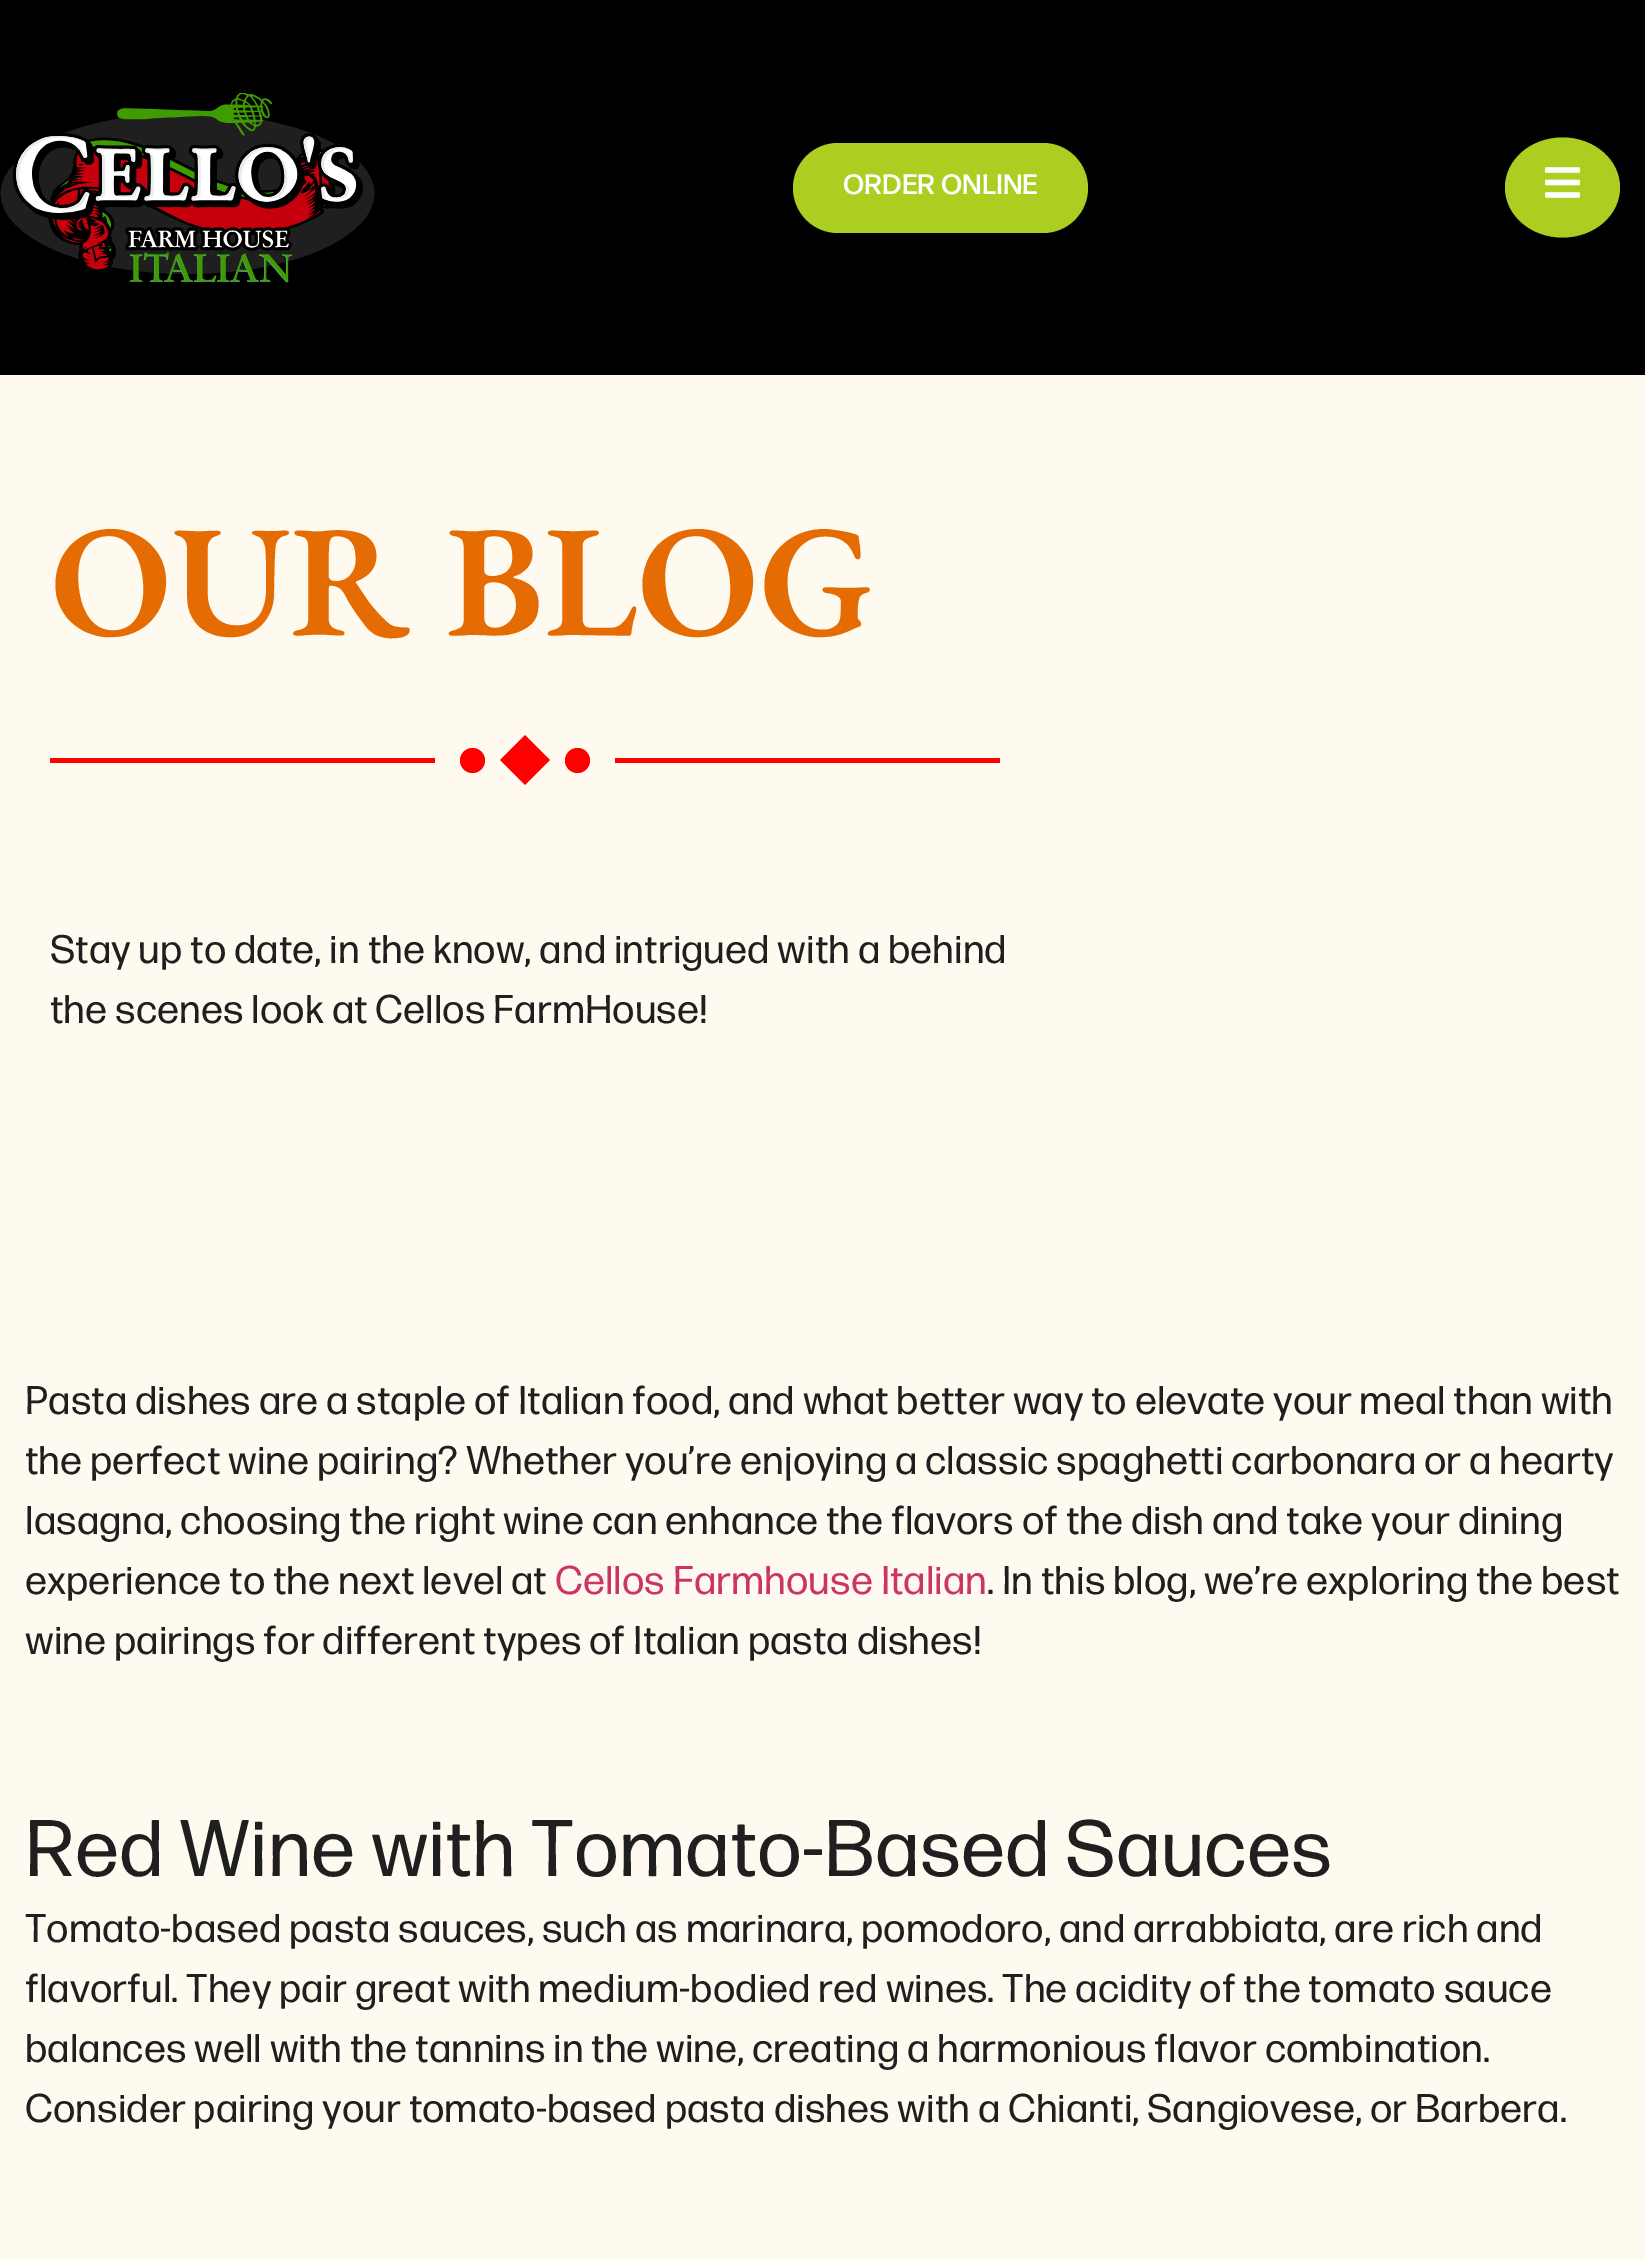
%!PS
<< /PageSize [1645 2260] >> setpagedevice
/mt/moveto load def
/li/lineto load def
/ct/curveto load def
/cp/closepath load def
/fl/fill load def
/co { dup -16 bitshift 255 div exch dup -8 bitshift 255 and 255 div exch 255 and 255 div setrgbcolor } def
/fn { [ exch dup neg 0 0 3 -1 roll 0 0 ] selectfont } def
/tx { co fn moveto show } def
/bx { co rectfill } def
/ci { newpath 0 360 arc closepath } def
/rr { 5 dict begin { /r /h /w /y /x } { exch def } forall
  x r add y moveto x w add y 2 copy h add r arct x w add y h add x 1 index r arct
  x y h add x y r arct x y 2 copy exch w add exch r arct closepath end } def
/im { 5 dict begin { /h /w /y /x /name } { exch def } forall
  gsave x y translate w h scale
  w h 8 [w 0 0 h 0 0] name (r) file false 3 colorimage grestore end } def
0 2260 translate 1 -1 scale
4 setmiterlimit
0 0 1645 2260 16#FFFAF0 bx
0 0 1645 375 16#000000 bx
(media/1.raw) 0 93 375 190 im
16#ABCE21 co
793 143 295 90 45 rr fl
1562.5 137.5 mt 1594.5 137.5 1620 160 1620 187.5 ct 1620 215 1594.5 237.5 1562.5 237.5 ct 1530.5 237.5 1505 215 1505 187.5 ct 1505 160 1530.5 137.5 1562.5 137.5 ct cp fl
(media/2.raw) 1545 167 35 31 im
50 758 385 5 16#FF0000 bx
472.5 760.5 12.5 ci fl
525 735 mt 550 760 li 525 785 li 500 760 li cp fl
577.5 760.5 12.5 ci fl
615 758 385 5 16#FF0000 bx
(ORDER ONLINE) 843 194 /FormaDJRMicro-Medium 28 16#FFFFFF tx
(OUR BLOG) 50 635 /EBGaramond-SemiBold 160 16#E56C03 tx
(Stay up to date, in the know, and intrigued with a behind) 50 963 /FormaDJRMicro-Regular 40 16#1F1F1F tx
(the scenes look at Cellos FarmHouse!) 50 1023 /FormaDJRMicro-Regular 40 16#1F1F1F tx
(Pasta dishes are a staple of Italian food, and what better way to elevate your meal than with) 25 1414 /FormaDJRMicro-Regular 40 16#1F1F1F tx
(the perfect wine pairing? Whether you’re enjoying a classic spaghetti carbonara or a hearty) 25 1474 /FormaDJRMicro-Regular 40 16#1F1F1F tx
(lasagna, choosing the right wine can enhance the flavors of the dish and take your dining) 25 1534 /FormaDJRMicro-Regular 40 16#1F1F1F tx
(experience to the next level at) 25 1594 /FormaDJRMicro-Regular 40 16#1F1F1F tx
(Cellos Farmhouse Italian) 555 1594 /FormaDJRMicro-Regular 40 16#CC3366 tx
(. In this blog, we’re exploring the best) 987 1594 /FormaDJRMicro-Regular 40 16#1F1F1F tx
(wine pairings for different types of Italian pasta dishes!) 25 1654 /FormaDJRMicro-Regular 40 16#1F1F1F tx
(Red Wine with Tomato-Based Sauces) 25 1876 /FormaDJRMicro-Regular 80 16#1F1F1F tx
(Tomato-based pasta sauces, such as marinara, pomodoro, and arrabbiata, are rich and) 25 1942 /FormaDJRMicro-Regular 40 16#1F1F1F tx
(flavorful. They pair great with medium-bodied red wines. The acidity of the tomato sauce) 25 2002 /FormaDJRMicro-Regular 40 16#1F1F1F tx
(balances well with the tannins in the wine, creating a harmonious flavor combination.) 25 2062 /FormaDJRMicro-Regular 40 16#1F1F1F tx
(Consider pairing your tomato-based pasta dishes with a Chianti, Sangiovese, or Barbera.) 25 2122 /FormaDJRMicro-Regular 40 16#1F1F1F tx
showpage
